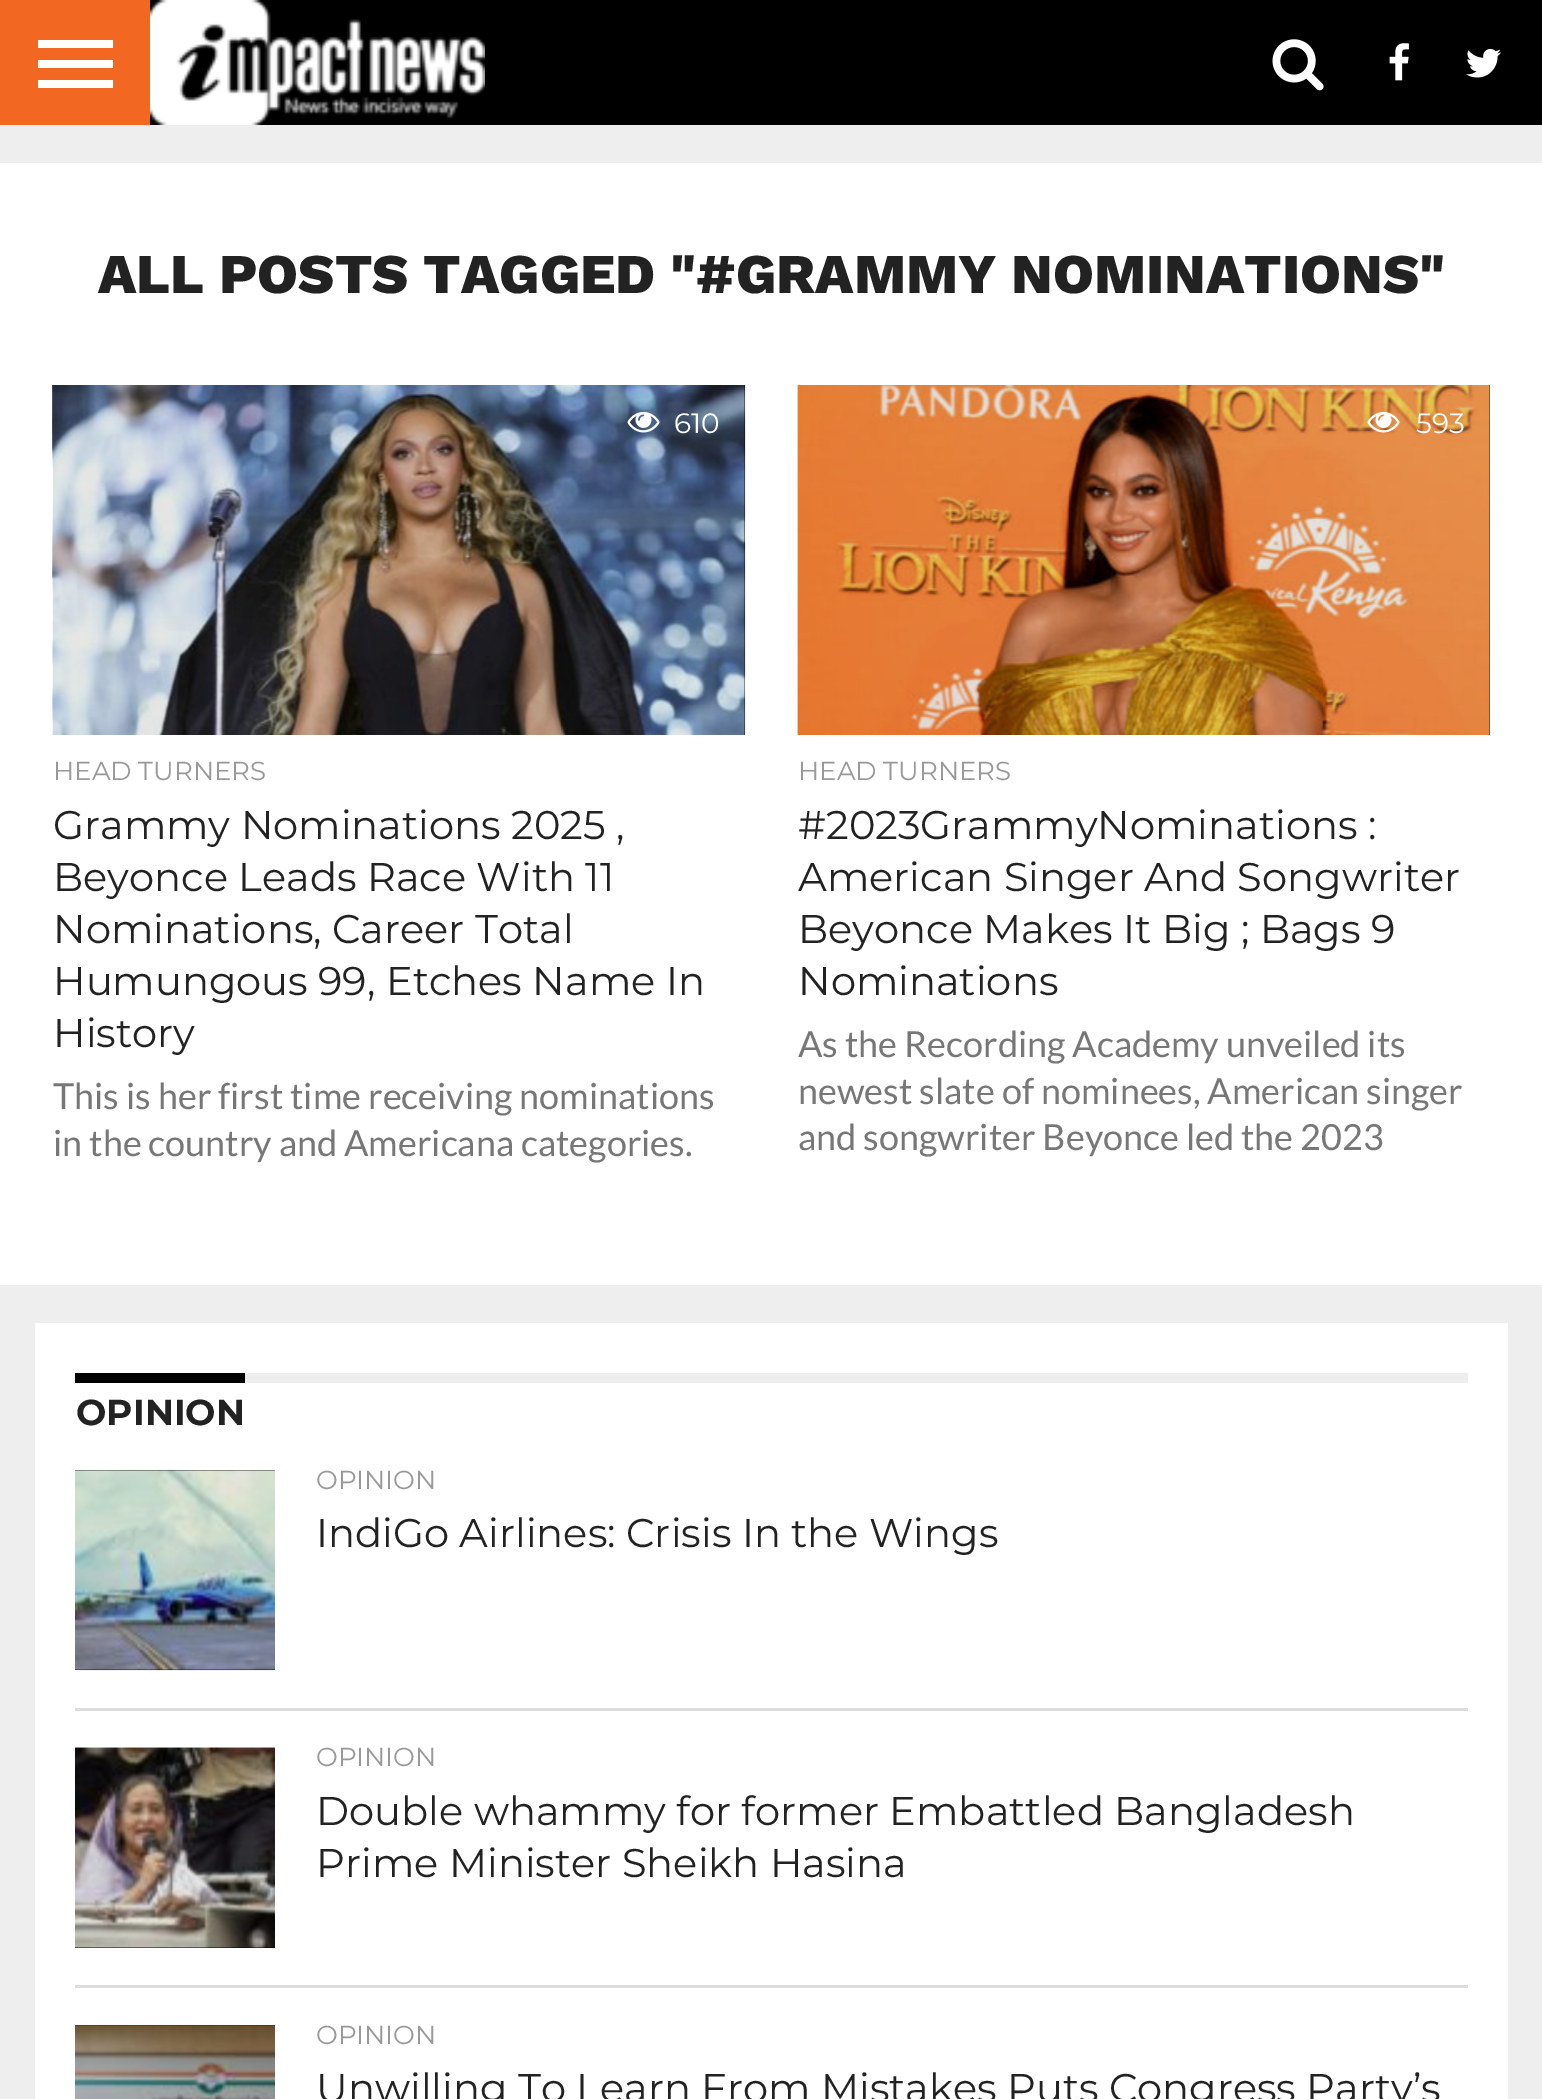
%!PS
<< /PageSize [1542 2099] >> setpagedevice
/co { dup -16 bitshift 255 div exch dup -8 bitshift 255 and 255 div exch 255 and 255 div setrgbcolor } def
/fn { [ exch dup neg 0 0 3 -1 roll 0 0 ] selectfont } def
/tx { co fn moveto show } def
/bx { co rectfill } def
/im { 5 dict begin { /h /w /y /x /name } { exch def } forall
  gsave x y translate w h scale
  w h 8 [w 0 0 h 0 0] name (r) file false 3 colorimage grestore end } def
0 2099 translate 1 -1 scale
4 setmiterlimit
0 0 1542 2099 16#EEEEEE bx
150 0 1392 125 16#000000 bx
0 0 150 125 16#F26722 bx
38 40 75 8 16#FFFFFF bx
38 60 75 8 16#FFFFFF bx
38 80 75 8 16#FFFFFF bx
(media/1.raw) 150 0 335 125 im
(media/2.raw) 1272 39 52 52 im
(media/3.raw) 1389 43 20 38 im
(media/4.raw) 1466 48 35 30 im
0 163 1542 1122 16#FFFFFF bx
53 385 692 350 16#000000 bx
(media/5.raw) 52 385 694 350 im
(media/6.raw) 627 411 33 22 im
798 385 692 350 16#000000 bx
(media/7.raw) 797 385 693 350 im
(media/8.raw) 1367 411 33 22 im
35 1323 1473 776 16#FFFFFF bx
245 1373 1223 10 16#EEEEEE bx
75 1373 170 10 16#000000 bx
75 1470 200 200 16#000000 bx
(media/9.raw) 75 1469 200 202 im
75 1708 1393 3 16#DDDDDD bx
75 1748 200 200 16#000000 bx
(media/10.raw) 75 1747 200 201 im
75 1985 1393 3 16#DDDDDD bx
75 2025 200 74 16#000000 bx
(media/11.raw) 75 2025 200 74 im
(ALL POSTS TAGGED "#GRAMMY NOMINATIONS") 98 293 /WorkSans-ExtraBold 56 16#222222 tx
(610) 674 433 /Montserrat-Regular 28 16#FFFFFF tx
(HEAD TURNERS) 53 780 /Montserrat-Regular 26 16#999999 tx
(Grammy Nominations 2025 ,) 53 839 /Montserrat-Regular 40 16#222222 tx
(Beyonce Leads Race With 11) 53 891 /Montserrat-Regular 40 16#222222 tx
(Nominations, Career Total) 53 943 /Montserrat-Regular 40 16#222222 tx
(Humungous 99, Etches Name In) 53 995 /Montserrat-Regular 40 16#222222 tx
(History) 53 1047 /Montserrat-Regular 40 16#222222 tx
(This is her first time receiving nominations) 53 1109 /Lato-Regular 36 16#777777 tx
(in the country and Americana categories.) 53 1156 /Lato-Regular 36 16#777777 tx
(593) 1416 433 /Montserrat-Regular 28 16#FFFFFF tx
(HEAD TURNERS) 798 780 /Montserrat-Regular 26 16#999999 tx
(#2023GrammyNominations :) 798 839 /Montserrat-Regular 40 16#222222 tx
(American Singer And Songwriter) 798 891 /Montserrat-Regular 40 16#222222 tx
(Beyonce Makes It Big ; Bags 9) 798 943 /Montserrat-Regular 40 16#222222 tx
(Nominations) 798 995 /Montserrat-Regular 40 16#222222 tx
(As the Recording Academy unveiled its) 798 1057 /Lato-Regular 36 16#777777 tx
(newest slate of nominees, American singer) 798 1104 /Lato-Regular 36 16#777777 tx
(and songwriter Beyonce led the 2023) 798 1150 /Lato-Regular 36 16#777777 tx
(OPINION) 76 1425 /Montserrat-Bold 36 16#222222 tx
(OPINION) 316 1489 /Montserrat-Regular 26 16#999999 tx
(IndiGo Airlines: Crisis In the Wings) 316 1547 /Montserrat-Regular 40 16#222222 tx
(OPINION) 316 1766 /Montserrat-Regular 26 16#999999 tx
(Double whammy for former Embattled Bangladesh) 316 1825 /Montserrat-Regular 40 16#222222 tx
(Prime Minister Sheikh Hasina) 316 1877 /Montserrat-Regular 40 16#222222 tx
(OPINION) 316 2044 /Montserrat-Regular 26 16#999999 tx
(Unwilling To Learn From Mistakes Puts Congress Party’s) 316 2102 /Montserrat-Regular 40 16#222222 tx
showpage
